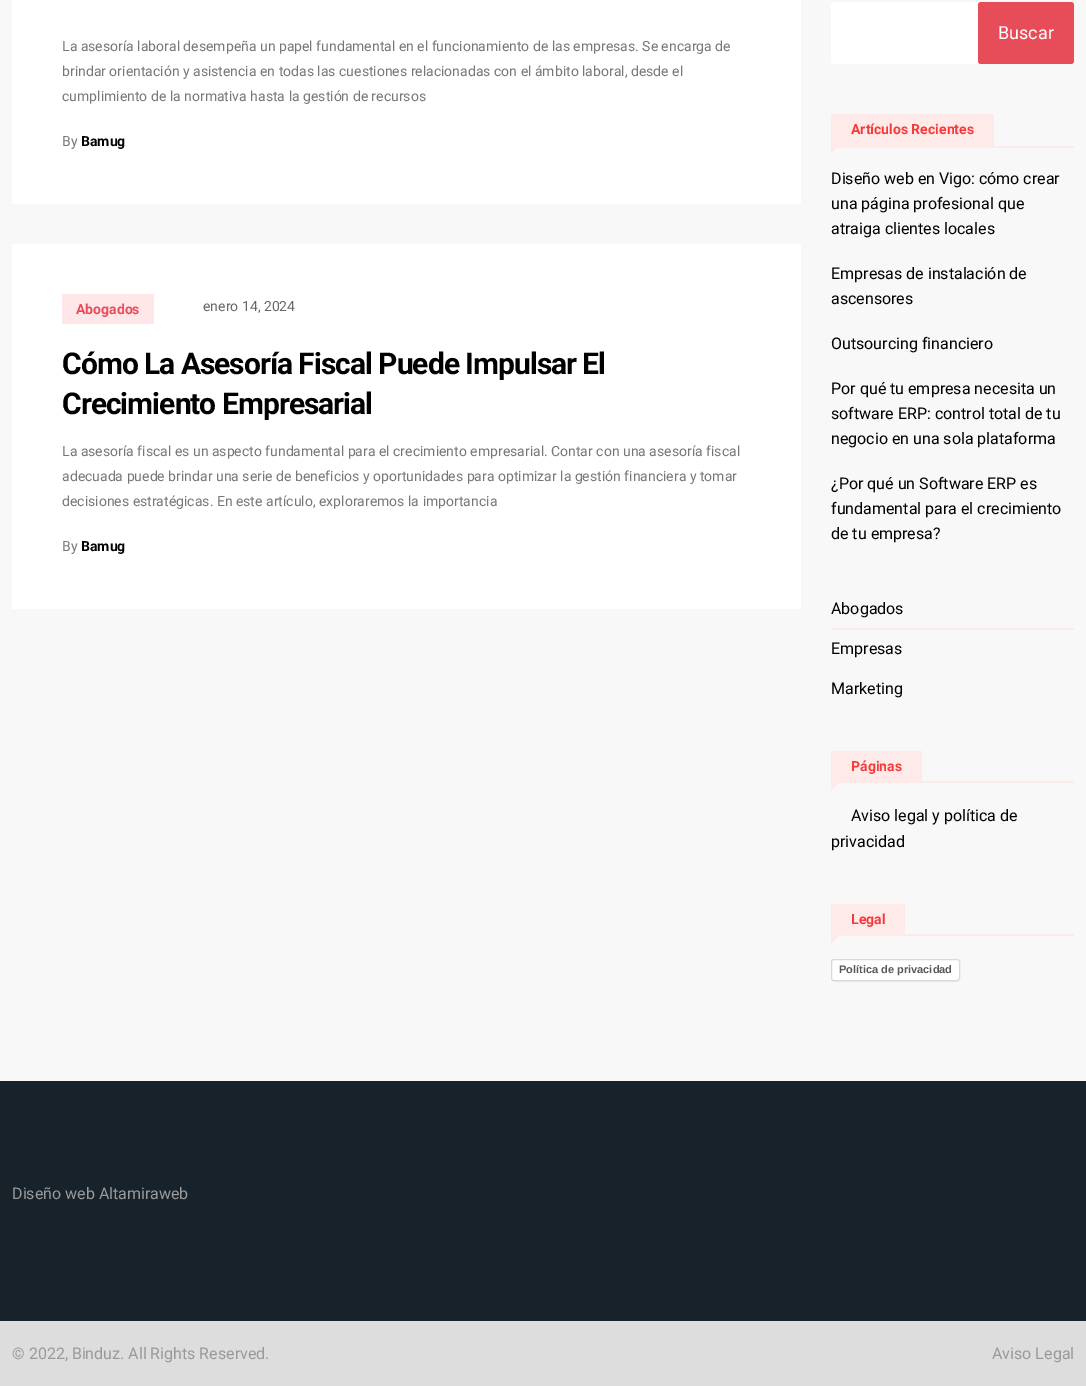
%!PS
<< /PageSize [1086 1386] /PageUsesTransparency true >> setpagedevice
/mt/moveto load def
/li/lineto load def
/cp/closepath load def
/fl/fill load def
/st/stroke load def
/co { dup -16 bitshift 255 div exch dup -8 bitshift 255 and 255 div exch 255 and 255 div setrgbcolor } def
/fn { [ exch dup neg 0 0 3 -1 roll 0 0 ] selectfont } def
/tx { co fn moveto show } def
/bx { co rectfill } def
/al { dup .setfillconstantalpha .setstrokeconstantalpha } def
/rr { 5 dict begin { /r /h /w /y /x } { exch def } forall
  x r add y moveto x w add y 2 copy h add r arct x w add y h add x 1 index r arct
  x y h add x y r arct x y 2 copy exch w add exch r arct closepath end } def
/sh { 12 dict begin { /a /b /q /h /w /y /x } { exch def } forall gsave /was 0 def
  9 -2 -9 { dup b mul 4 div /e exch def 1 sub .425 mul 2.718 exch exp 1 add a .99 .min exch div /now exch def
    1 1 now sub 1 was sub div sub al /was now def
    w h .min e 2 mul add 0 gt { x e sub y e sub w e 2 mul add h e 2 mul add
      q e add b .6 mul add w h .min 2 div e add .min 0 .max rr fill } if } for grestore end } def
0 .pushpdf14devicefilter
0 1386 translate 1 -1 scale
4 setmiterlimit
0 0 1086 1386 16#F8F8F8 bx
12 0 789 204 16#FFFFFF bx
12 244 789 365 16#FFFFFF bx
62 294 92 30 16#FFE7E9 bx
16#FFFFFF co
831 2 147 62 3 rr fl
16#E74D58 co
978 2 96 62 3 rr fl
831 114 163 32 16#FFEAEA bx
831 146 243 2 16#FFEAEA bx
831 144 mt 841 144 li 831 154 li cp fl
831 628 243 2 16#FFEAEA bx
831 781 243 2 16#FFEAEA bx
831 751 91 30 16#FFEAEA bx
831 781 mt 841 781 li 831 791 li cp fl
831 934 243 2 16#FFEAEA bx
831 904 74 30 16#FFEAEA bx
831 934 mt 841 934 li 831 944 li cp fl
16#000000 co
832 961 127 20 2 .5 .15 sh
16#FFFFFF co
831 959 129 22 3 rr fl
0.15 al
16#000000 co
831.5 959.5 128 21 2.5 rr st
1 al
0 1081 1086 240 16#17222B bx
0 1321 1086 65 16#DDDDDD bx
(La asesoría laboral desempeña un papel fundamental en el funcionamiento de las empresas. Se encarga de) 62 51 /Roboto-Regular 14 16#777777 tx
(brindar orientación y asistencia en todas las cuestiones relacionadas con el ámbito laboral, desde el) 62 76 /Roboto-Regular 14 16#777777 tx
(cumplimiento de la normativa hasta la gestión de recursos) 62 101 /Roboto-Regular 14 16#777777 tx
(By) 62 146 /Roboto-Regular 14 16#777777 tx
(Bamug) 81 146 /Roboto-Bold 14 16#000000 tx
(Abogados) 76 314 /Roboto-Bold 14 16#E74D58 tx
(enero 14, 2024) 203 311 /Roboto-Regular 14 16#666666 tx
/Roboto-Bold 30 fn
16#000000 co
62 374 mt -1 0 (Cómo La Asesoría Fiscal Puede Impulsar El) ashow
62 414 mt -1 0 (Crecimiento Empresarial) ashow
(La asesoría fiscal es un aspecto fundamental para el crecimiento empresarial. Contar con una asesoría fiscal) 62 456 /Roboto-Regular 14 16#777777 tx
(adecuada puede brindar una serie de beneficios y oportunidades para optimizar la gestión financiera y tomar) 62 481 /Roboto-Regular 14 16#777777 tx
(decisiones estratégicas. En este artículo, exploraremos la importancia) 62 506 /Roboto-Regular 14 16#777777 tx
(By) 62 551 /Roboto-Regular 14 16#777777 tx
(Bamug) 81 551 /Roboto-Bold 14 16#000000 tx
(Buscar) 998 39 /Roboto-Regular 18 16#FFFFFF tx
(Artículos Recientes) 851 134 /Roboto-Bold 14 16#F63A3A tx
(Diseño web en Vigo: cómo crear) 831 184 /Roboto-Regular 16 16#000000 tx
(una página profesional que) 831 209 /Roboto-Regular 16 16#000000 tx
(atraiga clientes locales) 831 234 /Roboto-Regular 16 16#000000 tx
(Empresas de instalación de) 831 279 /Roboto-Regular 16 16#000000 tx
(ascensores) 831 304 /Roboto-Regular 16 16#000000 tx
(Outsourcing financiero) 831 349 /Roboto-Regular 16 16#000000 tx
(Por qué tu empresa necesita un) 831 394 /Roboto-Regular 16 16#000000 tx
(software ERP: control total de tu) 831 419 /Roboto-Regular 16 16#000000 tx
(negocio en una sola plataforma) 831 444 /Roboto-Regular 16 16#000000 tx
(¿Por qué un Software ERP es) 831 489 /Roboto-Regular 16 16#000000 tx
(fundamental para el crecimiento) 831 514 /Roboto-Regular 16 16#000000 tx
(de tu empresa?) 831 539 /Roboto-Regular 16 16#000000 tx
(Abogados) 831 614 /Roboto-Regular 16 16#000000 tx
(Empresas) 831 654 /Roboto-Regular 16 16#000000 tx
(Marketing) 831 694 /Roboto-Regular 16 16#000000 tx
(Páginas) 851 771 /Roboto-Bold 14 16#F63A3A tx
(Aviso legal y política de) 851 821 /Roboto-Regular 16 16#000000 tx
(privacidad) 831 847 /Roboto-Regular 16 16#000000 tx
(Legal) 851 924 /Roboto-Bold 14 16#F63A3A tx
(Política de privacidad) 839 973 /LiberationSans-Bold 11 16#595959 tx
(Diseño web Altamiraweb) 12 1199 /Roboto-Regular 16 16#999999 tx
(© 2022, Binduz. All Rights Reserved.) 12 1359 /Roboto-Regular 16 16#999999 tx
(Aviso Legal) 992 1359 /Roboto-Regular 16 16#999999 tx
.poppdf14devicefilter showpage
